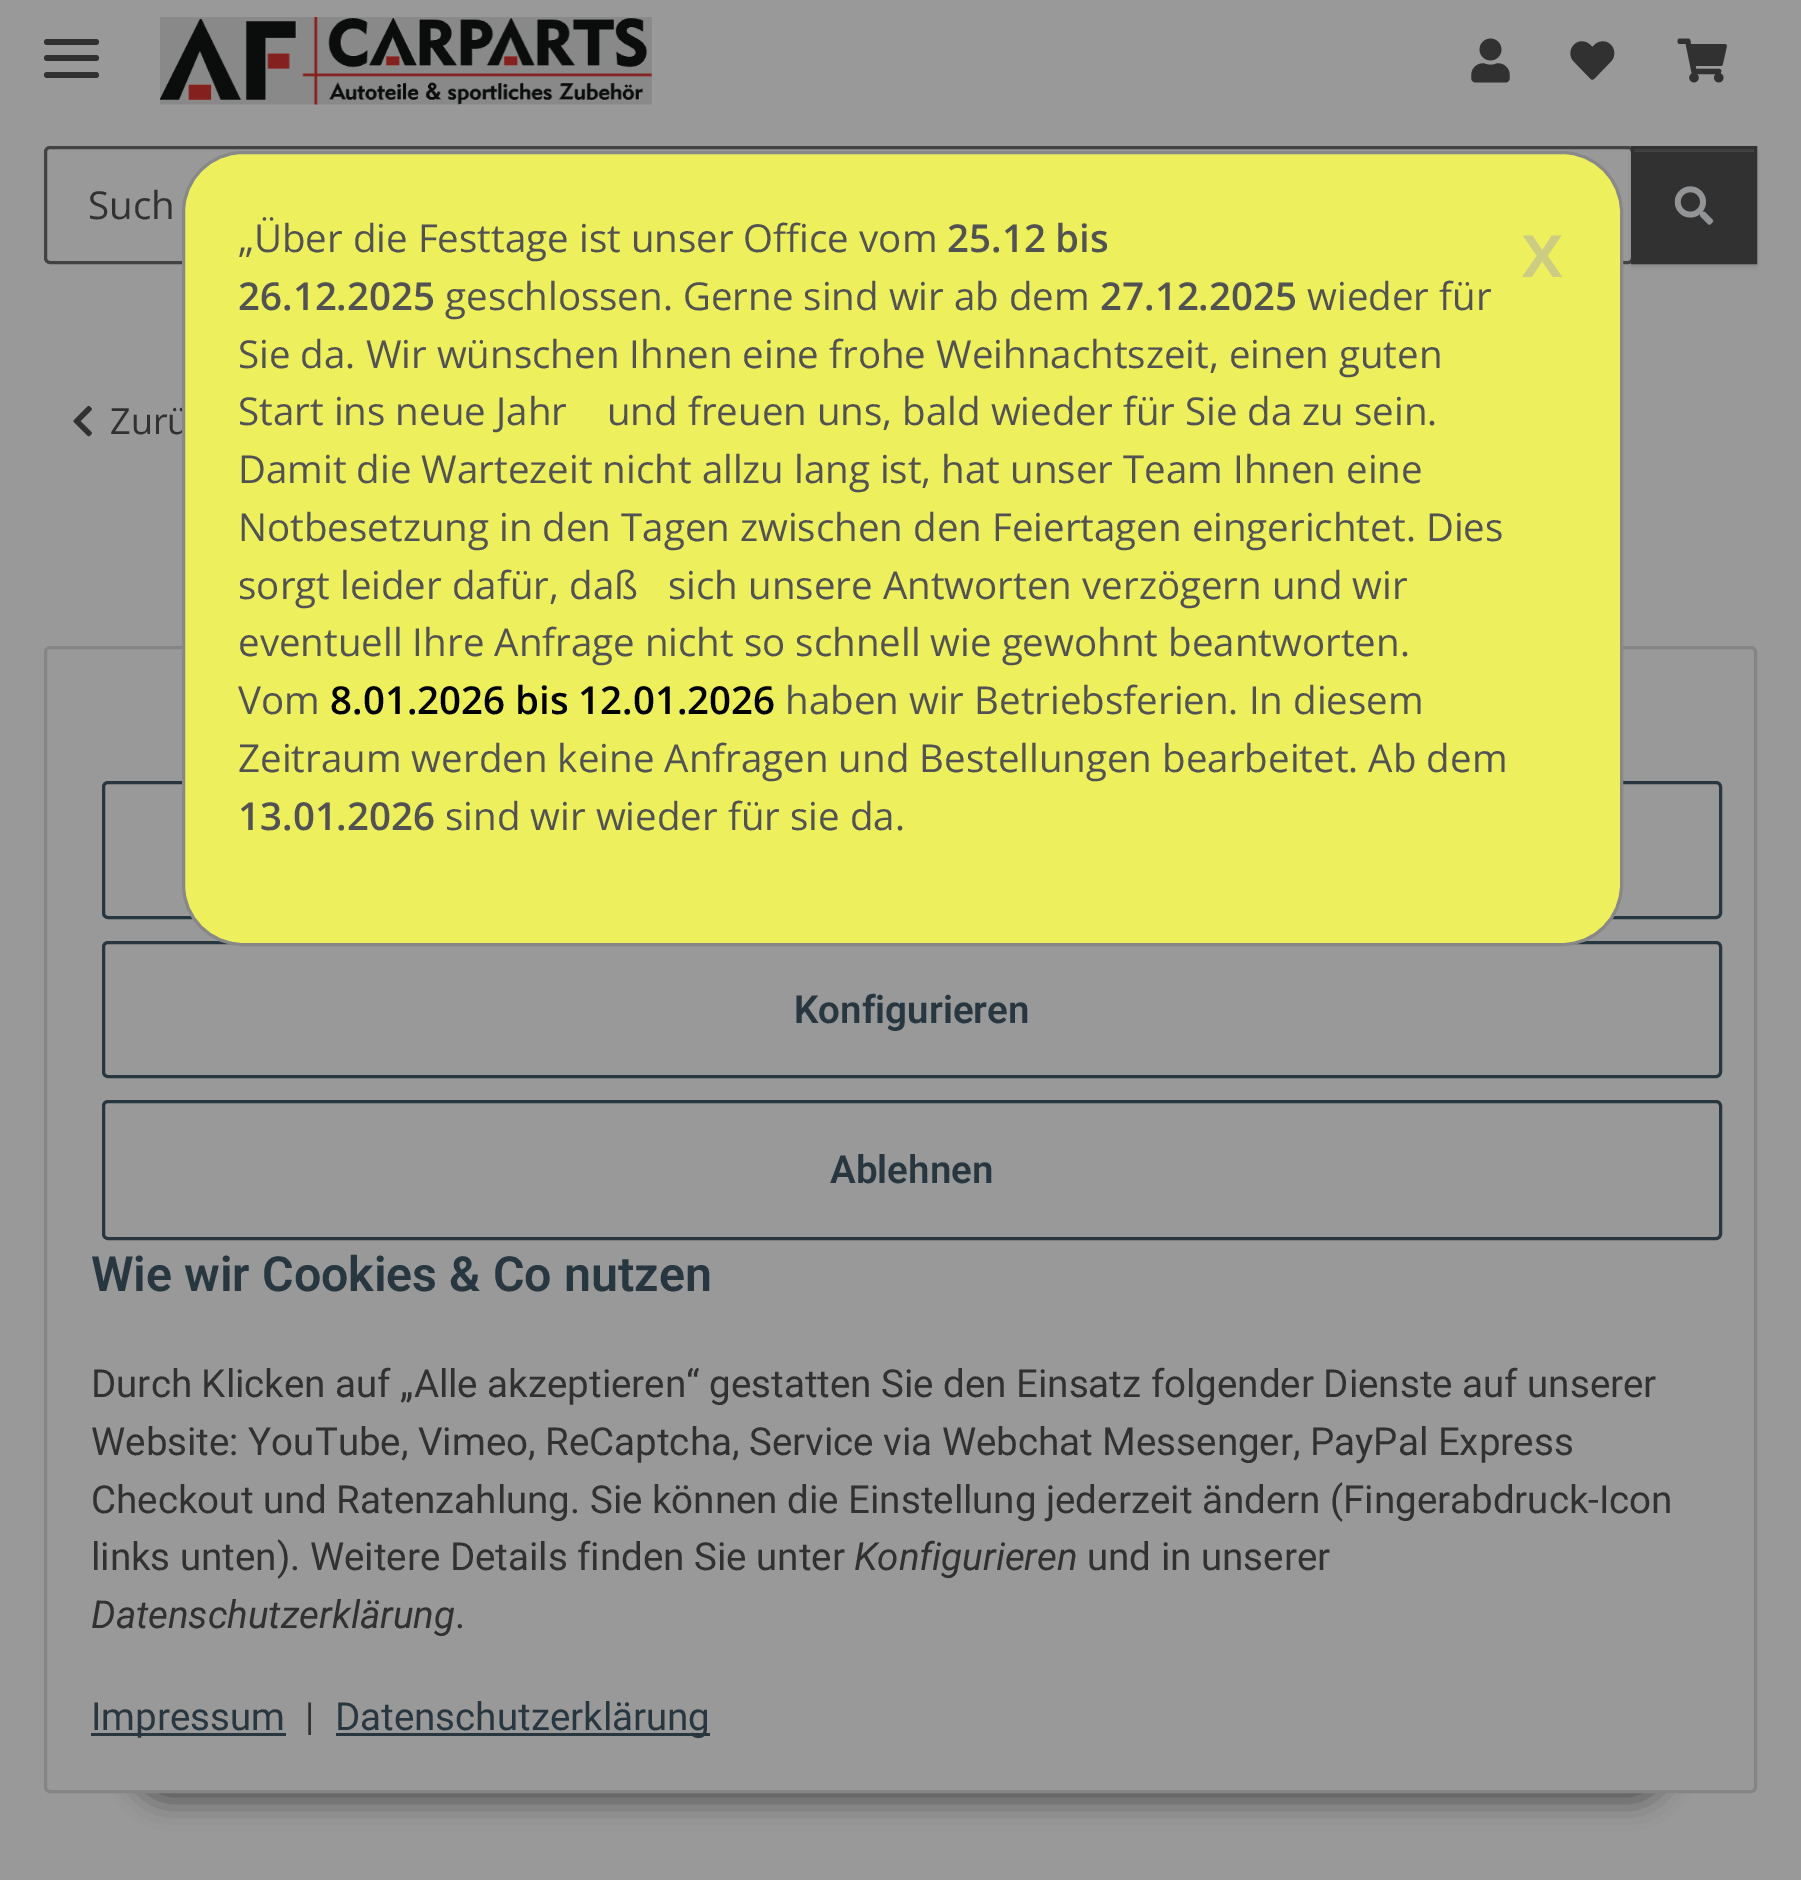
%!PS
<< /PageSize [1801 1880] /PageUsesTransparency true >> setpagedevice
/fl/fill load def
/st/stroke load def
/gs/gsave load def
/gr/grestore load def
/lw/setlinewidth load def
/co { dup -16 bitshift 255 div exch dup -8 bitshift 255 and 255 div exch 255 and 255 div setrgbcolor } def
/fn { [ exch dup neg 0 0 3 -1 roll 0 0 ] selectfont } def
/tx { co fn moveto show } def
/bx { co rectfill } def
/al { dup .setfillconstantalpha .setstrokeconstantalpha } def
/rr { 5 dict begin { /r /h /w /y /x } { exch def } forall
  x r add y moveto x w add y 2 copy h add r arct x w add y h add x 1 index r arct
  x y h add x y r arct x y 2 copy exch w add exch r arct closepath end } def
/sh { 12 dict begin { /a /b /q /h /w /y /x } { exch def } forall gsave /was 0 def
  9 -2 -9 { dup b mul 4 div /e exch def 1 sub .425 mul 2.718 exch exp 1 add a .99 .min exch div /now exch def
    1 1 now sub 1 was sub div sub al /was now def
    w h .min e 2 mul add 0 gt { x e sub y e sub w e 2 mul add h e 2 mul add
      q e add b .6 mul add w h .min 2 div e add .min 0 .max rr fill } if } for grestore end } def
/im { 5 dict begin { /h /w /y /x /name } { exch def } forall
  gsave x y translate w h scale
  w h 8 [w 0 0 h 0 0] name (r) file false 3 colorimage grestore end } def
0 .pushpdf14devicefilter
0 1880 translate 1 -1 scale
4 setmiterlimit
0 0 1801 1880 16#999999 bx
16#313131 co
44 55 55 6 3 rr fl
44 39 55 6 3 rr fl
44 72 55 6 3 rr fl
(media/1.raw) 160 17 492 88 im
(media/2.raw) 1471 38 39 45 im
(media/3.raw) 1570 41 45 39 im
(media/4.raw) 1677 38 50 45 im
16#434343 co
3 lw
45.5 147.5 1587 115 4.5 rr st
16#000000 co
1631 149 126 118 0 1.5 .07 sh
1634 152 120 109 16#313131 bx
1634 149 121 3 16#414141 bx
16#313131 co
1632.5 147.5 123 115 rectstroke
(media/5.raw) 1674 186 40 39 im
(media/6.raw) 73 405 19 32 im
16#000000 co
132 1713 1537 88 44 14 .45 sh
16#999999 co
45.5 647.5 1710 1144 4.5 rr gs fl gr
16#858585 co
st
16#283640 co
103.5 782.5 1617 135 4.5 rr st
103.5 942.5 1617 134 4.5 rr st
103.5 1101.5 1617 137 4.5 rr st
91 1733 195 3 16#283640 bx
336 1733 374 3 16#283640 bx
(Such) 88 219 /OpenSans-Regular 38.5 16#313131 tx
(Zurü) 110 434 /OpenSans-Regular 36 16#313131 tx
16#EDF05C co
183.5 152.5 1438 792 59.5 rr gs fl gr
16#888888 co
st
(„Über die Festtage ist unser Office vom) 238 252 /OpenSans-Regular 38.5 16#525252 tx
(25.12 bis) 947 252 /OpenSans-SemiBold 38.5 16#525252 tx
(26.12.2025) 238 310 /OpenSans-SemiBold 38.5 16#525252 tx
(geschlossen. Gerne sind wir ab dem) 445 310 /OpenSans-Regular 38.5 16#525252 tx
(27.12.2025) 1100 310 /OpenSans-SemiBold 38.5 16#525252 tx
(wieder für) 1307 310 /OpenSans-Regular 38.5 16#525252 tx
(Sie da. Wir wünschen Ihnen eine frohe Weihnachtszeit, einen guten) 238 368 /OpenSans-Regular 38.5 16#525252 tx
(Start ins neue Jahr    und freuen uns, bald wieder für Sie da zu sein.) 238 425 /OpenSans-Regular 38.5 16#525252 tx
(Damit die Wartezeit nicht allzu lang ist, hat unser Team Ihnen eine) 238 483 /OpenSans-Regular 38.5 16#525252 tx
(Notbesetzung in den Tagen zwischen den Feiertagen eingerichtet. Dies) 238 541 /OpenSans-Regular 38.5 16#525252 tx
(sorgt leider dafür, daß   sich unsere Antworten verzögern und wir) 238 599 /OpenSans-Regular 38.5 16#525252 tx
(eventuell Ihre Anfrage nicht so schnell wie gewohnt beantworten.) 238 656 /OpenSans-Regular 38.5 16#525252 tx
(Vom) 238 714 /OpenSans-Regular 38.5 16#525252 tx
(8.01.2026 bis 12.01.2026) 330 714 /OpenSans-SemiBold 38.5 16#000000 tx
(haben wir Betriebsferien. In diesem) 785 714 /OpenSans-Regular 38.5 16#525252 tx
(Zeitraum werden keine Anfragen und Bestellungen bearbeitet. Ab dem) 238 772 /OpenSans-Regular 38.5 16#525252 tx
(13.01.2026) 238 830 /OpenSans-SemiBold 38.5 16#525252 tx
(sind wir wieder für sie da.) 445 830 /OpenSans-Regular 38.5 16#525252 tx
(x) 1521 277 /OpenSans-SemiBold 77 16#CCCD83 tx
(Konfigurieren) 794 1023 /Roboto-SemiBold 38.5 16#283640 tx
(Ablehnen) 830 1183 /Roboto-SemiBold 38.5 16#283640 tx
(Wie wir Cookies & Co nutzen) 91 1291 /Roboto-SemiBold 48.4 16#283640 tx
(Durch Klicken auf „Alle akzeptieren“ gestatten Sie den Einsatz folgender Dienste auf unserer) 91 1397 /Roboto-Regular 38.5 16#313131 tx
(Website: YouTube, Vimeo, ReCaptcha, Service via Webchat Messenger, PayPal Express) 91 1455 /Roboto-Regular 38.5 16#313131 tx
(Checkout und Ratenzahlung. Sie können die Einstellung jederzeit ändern \(Fingerabdruck-Icon) 91 1513 /Roboto-Regular 38.5 16#313131 tx
(links unten\). Weitere Details finden Sie unter) 91 1570 /Roboto-Regular 38.5 16#313131 tx
(Konfigurieren) 854 1570 /Roboto-Italic 38.5 16#313131 tx
(und in unserer) 1087 1570 /Roboto-Regular 38.5 16#313131 tx
(Datenschutzerklärung) 91 1628 /Roboto-Italic 38.5 16#313131 tx
(.) 455 1628 /Roboto-Regular 38.5 16#313131 tx
(Impressum) 91 1730 /Roboto-Regular 38.5 16#283640 tx
(|) 305 1730 /Roboto-Regular 38.5 16#313131 tx
(Datenschutzerklärung) 335 1730 /Roboto-Regular 38.5 16#283640 tx
.poppdf14devicefilter showpage
